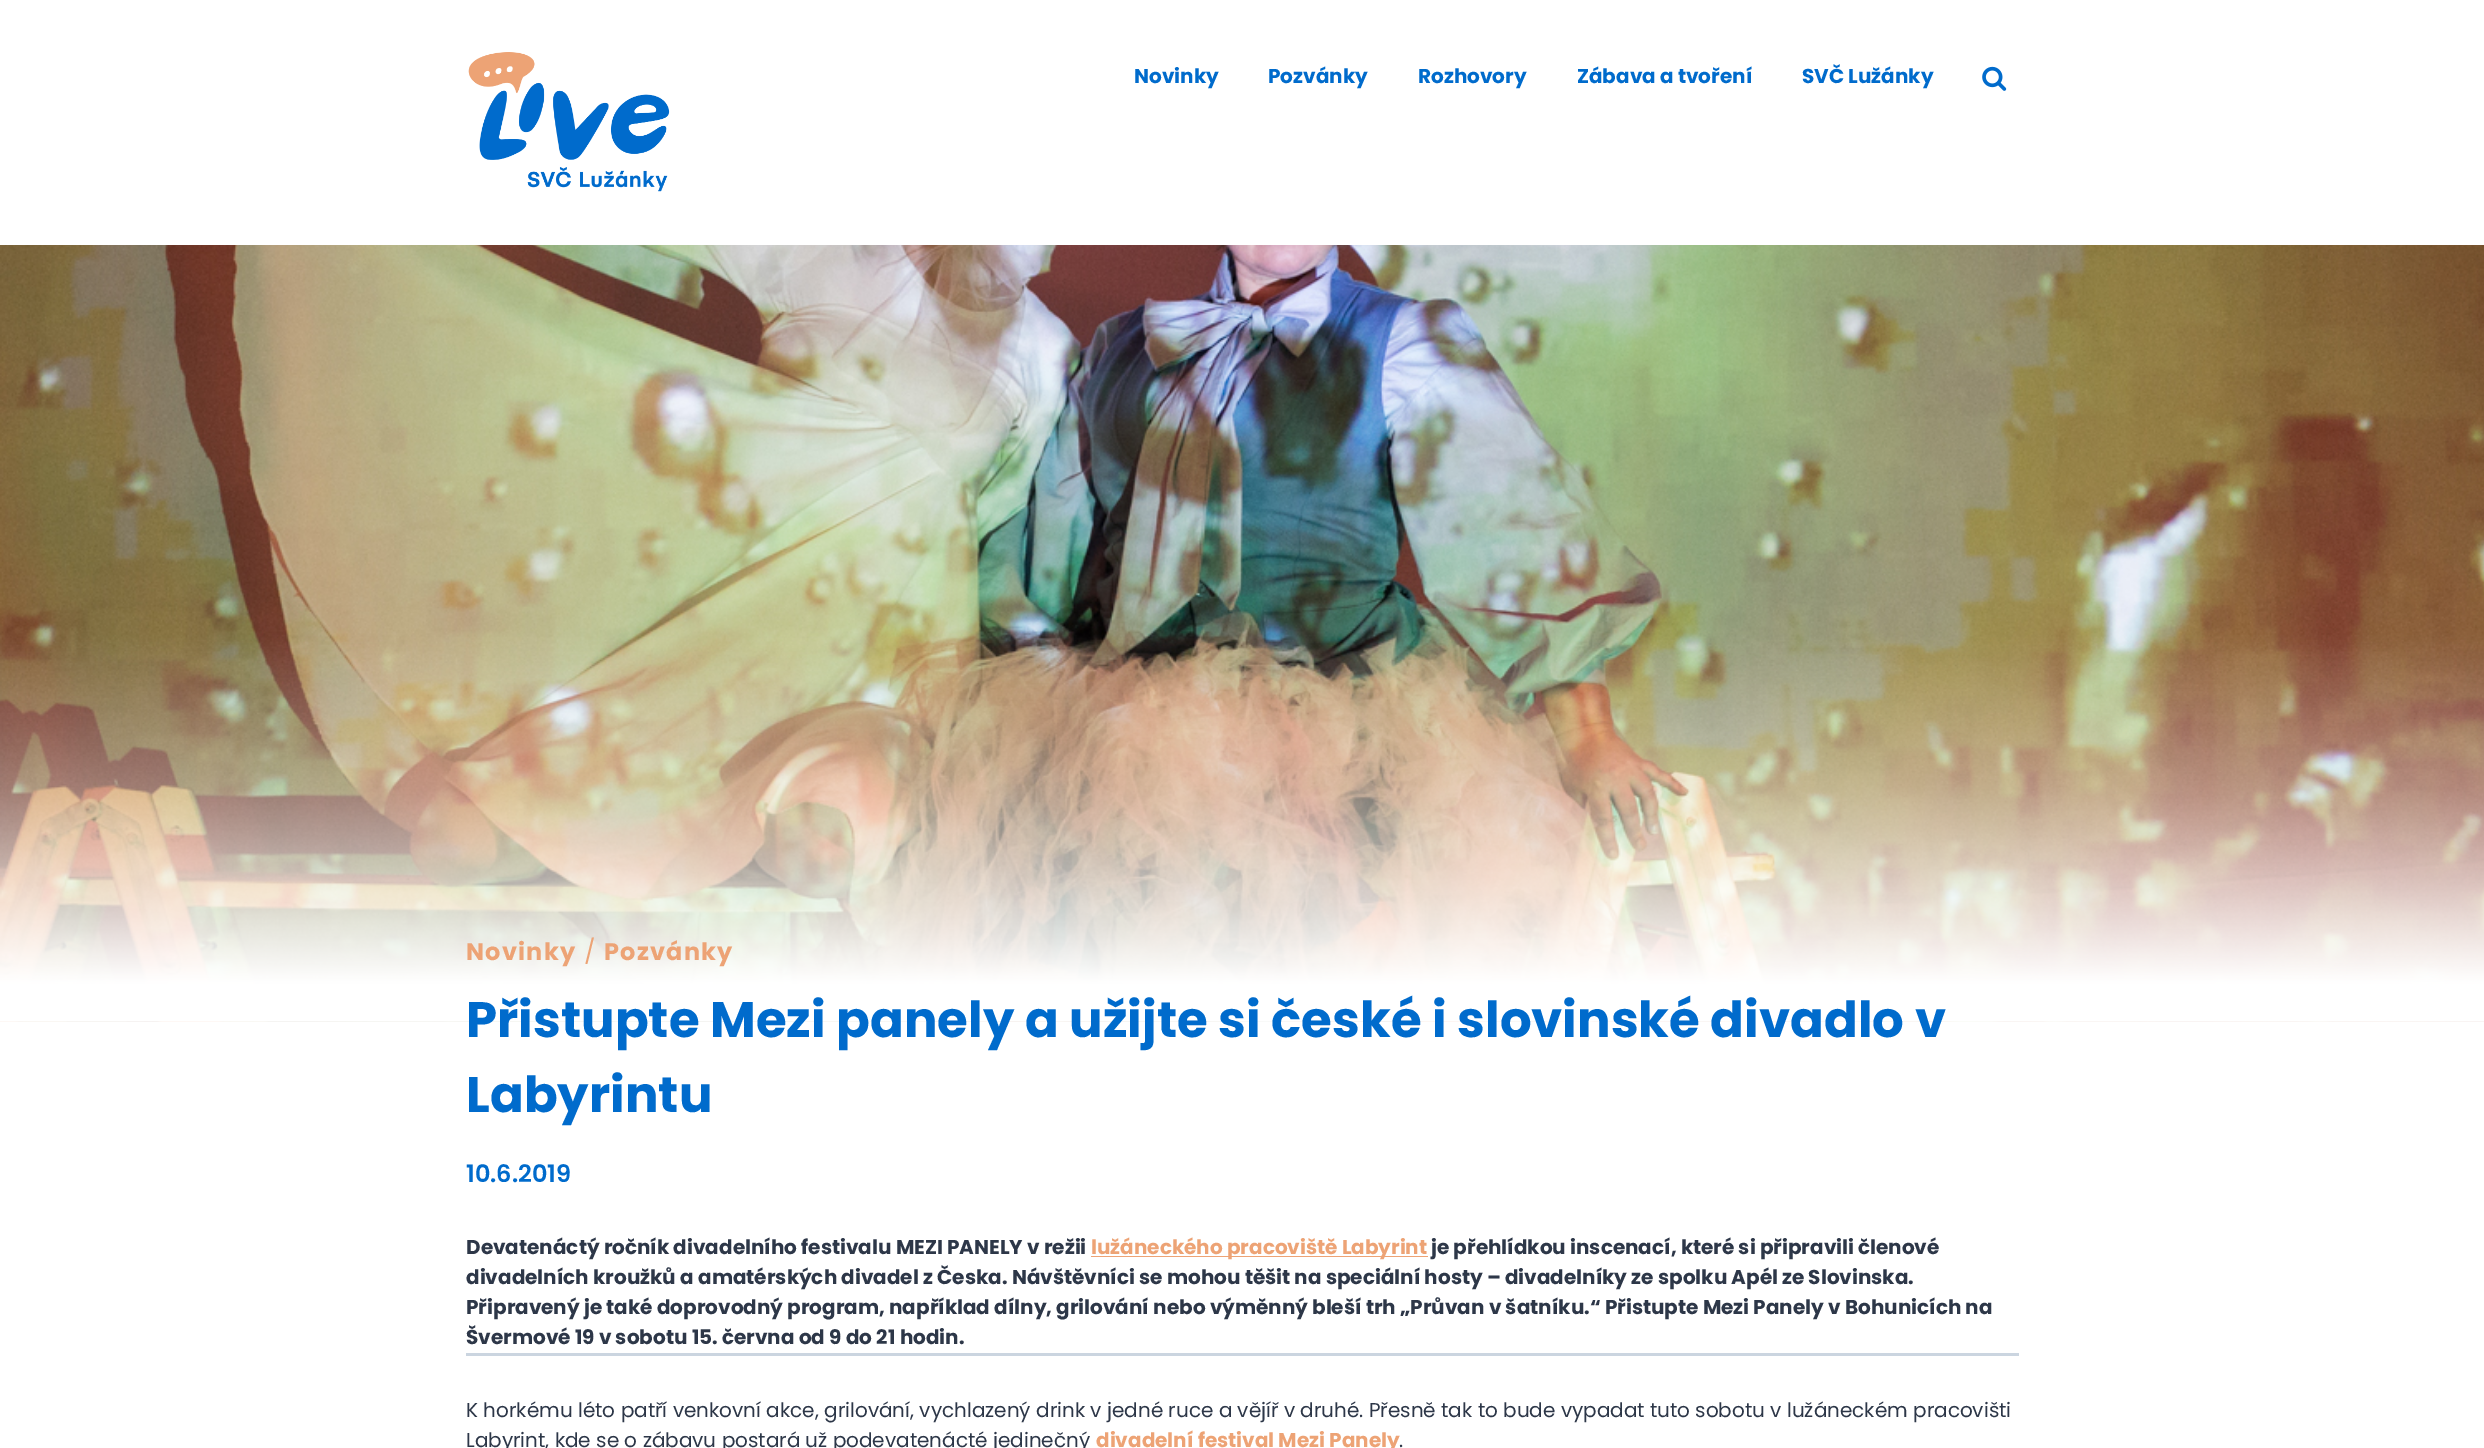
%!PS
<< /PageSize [2484 1448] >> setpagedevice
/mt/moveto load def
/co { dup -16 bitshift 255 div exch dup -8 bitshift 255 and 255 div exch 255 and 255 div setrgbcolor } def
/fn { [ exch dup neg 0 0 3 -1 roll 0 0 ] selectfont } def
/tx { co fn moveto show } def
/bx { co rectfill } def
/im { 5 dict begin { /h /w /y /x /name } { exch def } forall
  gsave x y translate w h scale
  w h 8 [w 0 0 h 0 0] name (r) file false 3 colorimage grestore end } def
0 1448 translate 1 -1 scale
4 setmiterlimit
0 0 2484 1448 16#FFFFFF bx
(media/1.raw) 468 52 202 140 im
(media/2.raw) 1982 66 25 25 im
(media/3.raw) 0 245 2484 777 im
1091 1256 337 1 16#EDA375 bx
466 1353 1553 3 16#CBD5E0 bx
(Novinky) 1134 83 /Poppins-Bold 20 16#006BCC tx
(Pozvánky) 1268 83 /Poppins-Bold 20 16#006BCC tx
(Rozhovory) 1418 83 /Poppins-Bold 20 16#006BCC tx
(Zábava a tvoření) 1577 83 /Poppins-Bold 20 16#006BCC tx
(SVČ Lužánky) 1802 83 /Poppins-Bold 20 16#006BCC tx
/Poppins-Bold 24 fn
16#EDA375 co
466 960 mt 1.25 0 (Novinky) ashow
/Poppins-Regular 24 fn
584 960 mt 1.25 0 (/) ashow
/Poppins-Bold 24 fn
604 960 mt 1.25 0 (Pozvánky) ashow
(Přistupte Mezi panely a užijte si české i slovinské divadlo v) 466 1037 /Poppins-Bold 49.8 16#006BCC tx
(Labyrintu) 466 1112 /Poppins-Bold 49.8 16#006BCC tx
(10.6.2019) 466 1182 /Poppins-SemiBold 24 16#006BCC tx
(Devatenáctý ročník divadelního festivalu MEZI PANELY v režii) 466 1254 /Poppins-Bold 20 16#2D3748 tx
(lužáneckého pracoviště Labyrint) 1091 1254 /Poppins-Bold 20 16#EDA375 tx
(je přehlídkou inscenací, které si připravili členové) 1431 1254 /Poppins-Bold 20 16#2D3748 tx
(divadelních kroužků a amatérských divadel z Česka. Návštěvníci se mohou těšit na speciální hosty – divadelníky ze spolku Apél ze Slovinska.) 466 1284 /Poppins-Bold 20 16#2D3748 tx
(Připravený je také doprovodný program, například dílny, grilování nebo výměnný bleší trh „Průvan v šatníku.“ Přistupte Mezi Panely v Bohunicích na) 466 1314 /Poppins-Bold 20 16#2D3748 tx
(Švermové 19 v sobotu 15. června od 9 do 21 hodin.) 466 1344 /Poppins-Bold 20 16#2D3748 tx
(K horkému léto patří venkovní akce, grilování, vychlazený drink v jedné ruce a vějíř v druhé. Přesně tak to bude vypadat tuto sobotu v lužáneckém pracovišti) 466 1417 /Poppins-Regular 20 16#2D3748 tx
(Labyrint, kde se o zábavu postará už podevatenácté jedinečný) 466 1447 /Poppins-Regular 20 16#2D3748 tx
(divadelní festival Mezi Panely) 1096 1447 /Poppins-Bold 20 16#EDA375 tx
(.) 1399 1447 /Poppins-Regular 20 16#2D3748 tx
showpage
